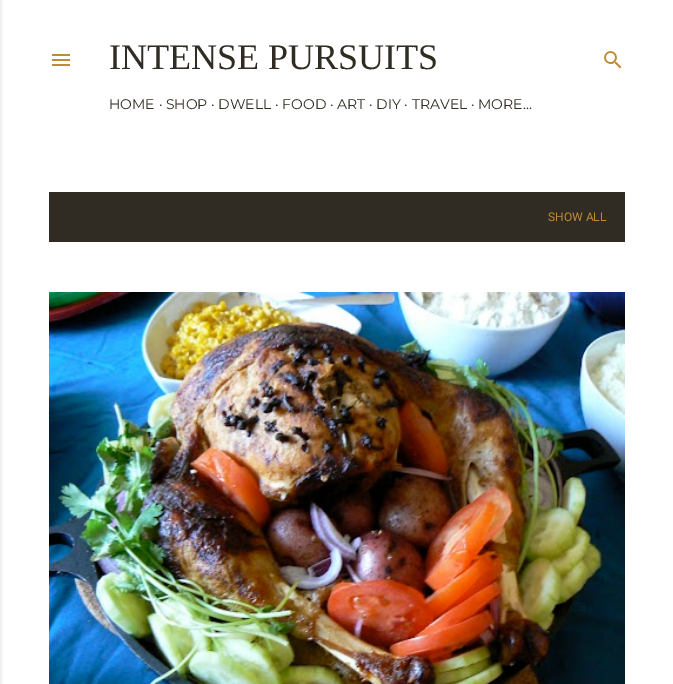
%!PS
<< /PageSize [673 684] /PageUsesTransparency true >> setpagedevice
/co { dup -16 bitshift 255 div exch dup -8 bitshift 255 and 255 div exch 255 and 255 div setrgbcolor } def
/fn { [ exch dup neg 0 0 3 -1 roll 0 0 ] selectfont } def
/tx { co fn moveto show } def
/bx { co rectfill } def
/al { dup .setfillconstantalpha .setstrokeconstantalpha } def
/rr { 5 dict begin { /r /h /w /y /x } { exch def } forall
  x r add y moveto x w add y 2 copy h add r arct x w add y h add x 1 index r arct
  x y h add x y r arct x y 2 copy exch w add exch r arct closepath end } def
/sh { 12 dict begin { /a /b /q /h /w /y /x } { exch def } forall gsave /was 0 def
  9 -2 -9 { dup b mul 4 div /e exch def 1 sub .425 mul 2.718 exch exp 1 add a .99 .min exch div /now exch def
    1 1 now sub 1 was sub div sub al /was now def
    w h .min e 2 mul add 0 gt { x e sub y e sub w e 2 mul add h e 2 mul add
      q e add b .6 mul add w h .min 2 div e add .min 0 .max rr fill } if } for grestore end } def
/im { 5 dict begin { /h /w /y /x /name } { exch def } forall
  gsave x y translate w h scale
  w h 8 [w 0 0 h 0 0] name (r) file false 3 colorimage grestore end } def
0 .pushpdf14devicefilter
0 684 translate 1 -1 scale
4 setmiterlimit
0 0 673 684 16#FFFFFF bx
16#000000 co
-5 0 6 684 0 1.5 .1 sh
(media/1.raw) 52 54 18 12 im
(media/2.raw) 604 51 18 18 im
49 192 576 50 16#302C24 bx
(media/3.raw) 49 292 576 392 im
(INTENSE PURSUITS) 109 69 /LiberationSerif-Regular 36 16#302C24 tx
(HOME · SHOP · DWELL · FOOD · ART · DIY · TRAVEL · MORE…) 109 109 /Montserrat-Thin 14 16#302C24 tx
(SHOW ALL) 548 221 /Roboto-Regular 12 16#BF8B38 tx
.poppdf14devicefilter showpage
